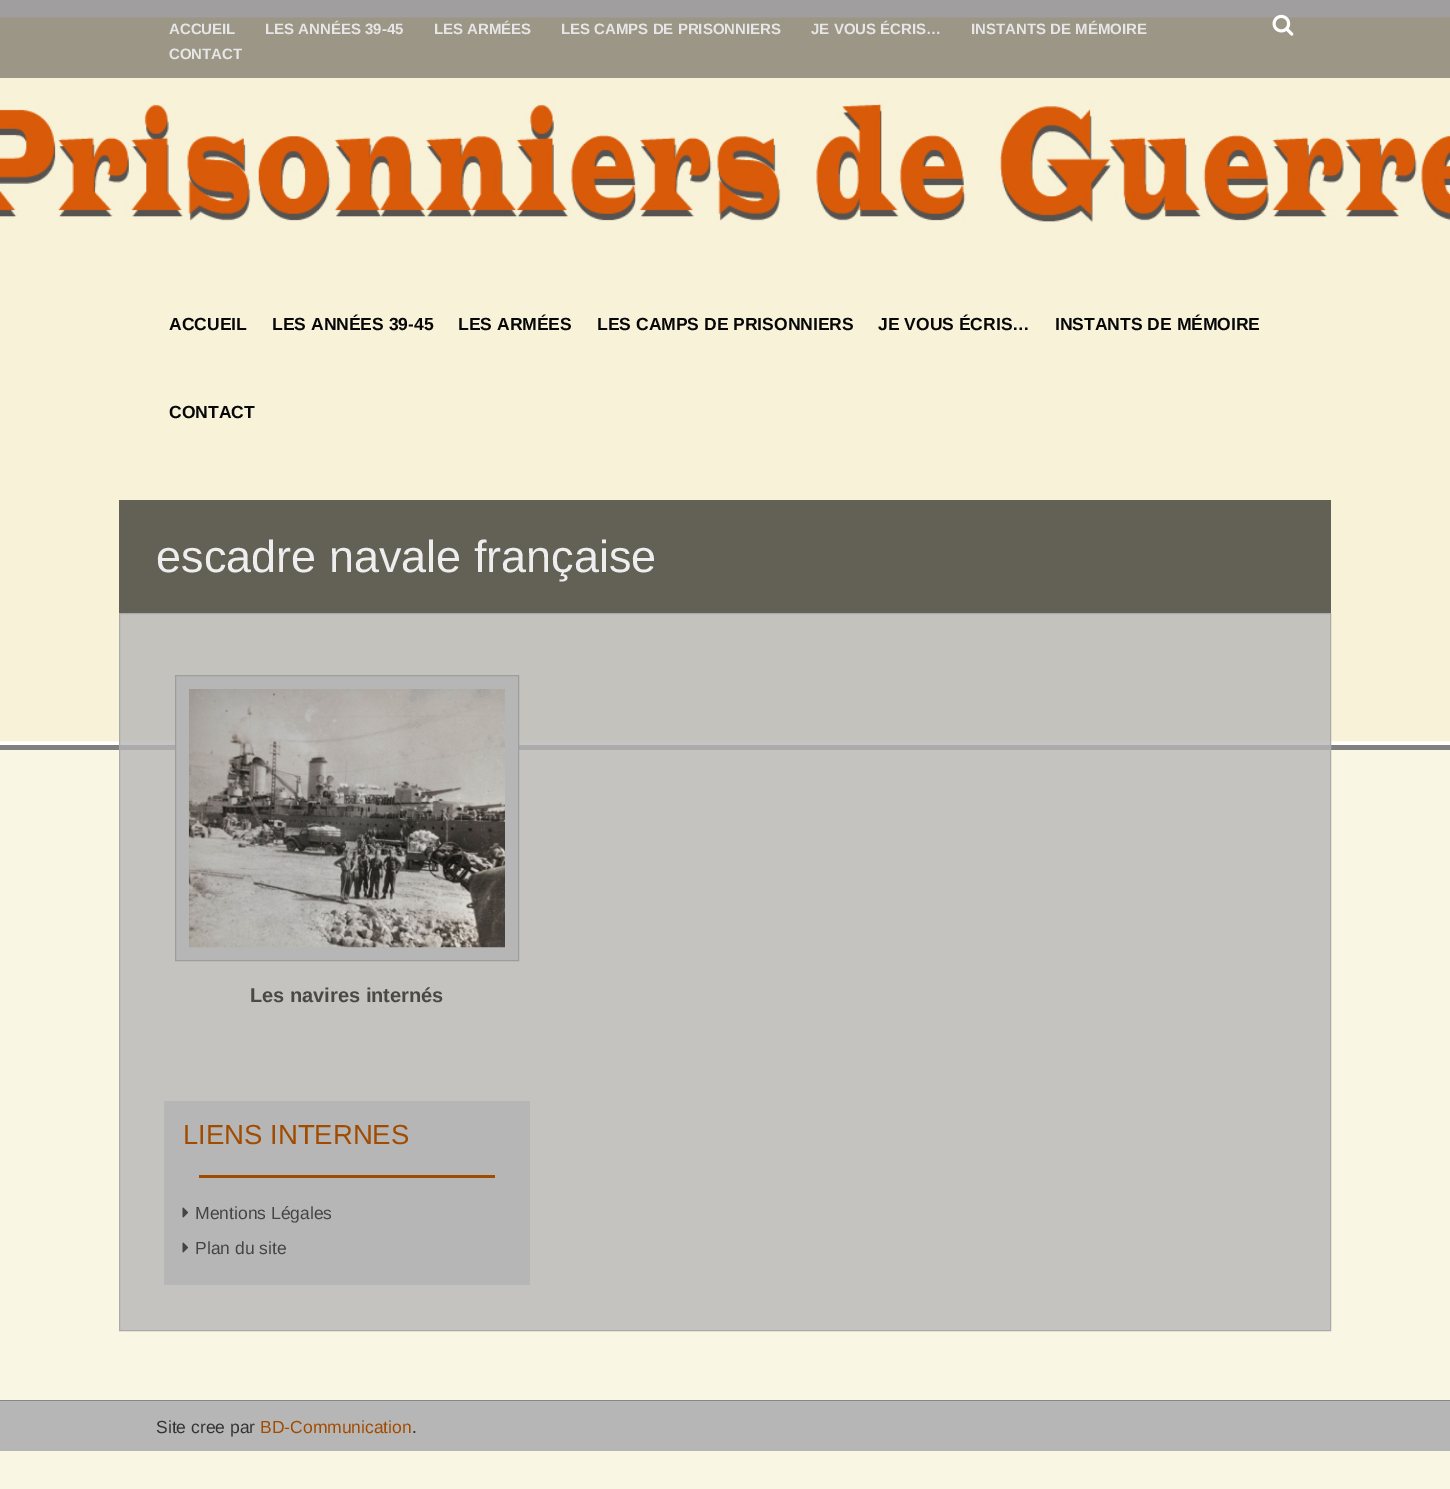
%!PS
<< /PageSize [1450 1489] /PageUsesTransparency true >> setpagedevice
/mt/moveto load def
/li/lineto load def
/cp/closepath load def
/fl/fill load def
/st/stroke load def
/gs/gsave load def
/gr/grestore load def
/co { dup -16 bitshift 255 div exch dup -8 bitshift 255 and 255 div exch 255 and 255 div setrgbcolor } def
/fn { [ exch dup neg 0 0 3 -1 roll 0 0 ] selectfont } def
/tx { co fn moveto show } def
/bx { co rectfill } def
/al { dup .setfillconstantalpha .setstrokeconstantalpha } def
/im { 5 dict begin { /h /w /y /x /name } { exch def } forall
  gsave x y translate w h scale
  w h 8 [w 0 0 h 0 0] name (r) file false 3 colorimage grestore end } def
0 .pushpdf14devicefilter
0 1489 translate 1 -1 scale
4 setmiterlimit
0 0 1450 1489 16#FAF6E4 bx
(media/1.raw) 0 0 1450 745 im
0 745 1450 5 16#808080 bx
0.4 al
0 0 1450 78 16#120D0C bx
1 al
(media/2.raw) 1272 14 22 22 im
119 500 1212 113 16#636156 bx
0.8 al
16#B6B6B6 co
119.5 613.5 mt 1330.5 613.5 li 1330.5 1330.5 li 119.5 1330.5 li cp fl
1 al
16#AAAAAA co
119.5 613.5 mt 1330.5 613.5 li 1330.5 1330.5 li 119.5 1330.5 li cp st
16#B6B6B6 co
175.5 675.5 mt 518.5 675.5 li 518.5 960.5 li 175.5 960.5 li cp gs fl gr
16#9D9D9D co
st
(media/3.raw) 188 689 317 259 im
164 1101 366 184 16#B6B6B6 bx
199 1175 296 3 16#A14B00 bx
(media/4.raw) 182 1207 7 11 im
(media/4.raw) 182 1242 7 11 im
0 1401 1450 50 16#B6B6B6 bx
0 1400 1450 1 16#888888 bx
(ACCUEIL) 169 34 /LiberationSans-Bold 15 16#E6E6E6 tx
(LES ANNÉES 39-45) 265 34 /LiberationSans-Bold 15 16#E6E6E6 tx
(LES ARMÉES) 434 34 /LiberationSans-Bold 15 16#E6E6E6 tx
(LES CAMPS DE PRISONNIERS) 561 34 /LiberationSans-Bold 15 16#E6E6E6 tx
(JE VOUS ÉCRIS…) 811 34 /LiberationSans-Bold 15 16#E6E6E6 tx
(INSTANTS DE MÉMOIRE) 971 34 /LiberationSans-Bold 15 16#E6E6E6 tx
(CONTACT) 169 59 /LiberationSans-Bold 15 16#E6E6E6 tx
(ACCUEIL) 169 330 /LiberationSans-Bold 17.5 16#070707 tx
(LES ANNÉES 39-45) 272 330 /LiberationSans-Bold 17.5 16#070707 tx
(LES ARMÉES) 458 330 /LiberationSans-Bold 17.5 16#070707 tx
(LES CAMPS DE PRISONNIERS) 597 330 /LiberationSans-Bold 17.5 16#070707 tx
(JE VOUS ÉCRIS…) 878 330 /LiberationSans-Bold 17.5 16#070707 tx
(INSTANTS DE MÉMOIRE) 1055 330 /LiberationSans-Bold 17.5 16#070707 tx
(CONTACT) 169 418 /LiberationSans-Bold 17.5 16#070707 tx
(escadre navale française) 156 572 /LiberationSans-Regular 45 16#EEEEEE tx
(Les navires internés) 250 1002 /LiberationSans-Bold 20 16#4B4846 tx
(LIENS INTERNES) 183 1144 /LiberationSans-Regular 27.5 16#A14B00 tx
(Mentions Légales) 195 1219 /LiberationSans-Regular 17.5 16#444444 tx
(Plan du site) 195 1254 /LiberationSans-Regular 17.5 16#444444 tx
(Site cree par) 156 1433 /LiberationSans-Regular 17.5 16#333333 tx
(BD-Communication) 260 1433 /LiberationSans-Regular 17.5 16#A14B00 tx
(.) 412 1433 /LiberationSans-Regular 17.5 16#333333 tx
.poppdf14devicefilter showpage
